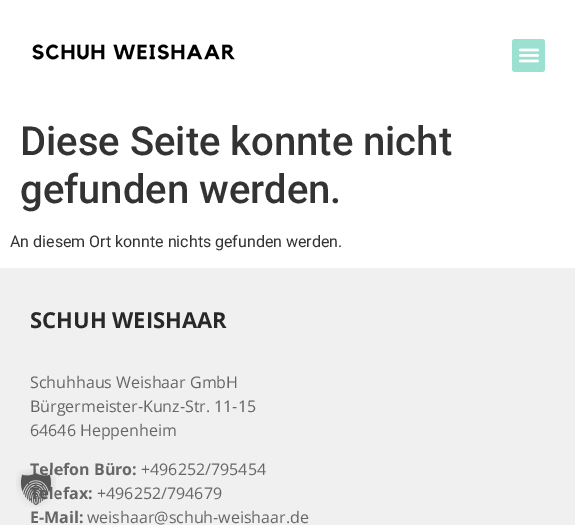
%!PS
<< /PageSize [575 525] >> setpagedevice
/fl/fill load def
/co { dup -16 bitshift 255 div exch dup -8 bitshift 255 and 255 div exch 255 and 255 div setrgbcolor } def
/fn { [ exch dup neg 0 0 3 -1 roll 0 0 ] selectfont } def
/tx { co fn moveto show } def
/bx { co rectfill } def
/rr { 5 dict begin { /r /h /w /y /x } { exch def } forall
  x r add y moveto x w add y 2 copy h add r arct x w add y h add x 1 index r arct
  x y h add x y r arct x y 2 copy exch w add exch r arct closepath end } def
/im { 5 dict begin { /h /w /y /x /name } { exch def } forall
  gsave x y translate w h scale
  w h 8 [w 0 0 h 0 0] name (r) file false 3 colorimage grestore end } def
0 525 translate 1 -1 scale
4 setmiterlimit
0 0 575 525 16#FFFFFF bx
(media/1.raw) 32 44 203 16 im
16#9AE1D1 co
512 39 33 33 3 rr fl
(media/2.raw) 519 48 20 15 im
0 268 575 257 16#F0F0F0 bx
(Diese Seite konnte nicht) 20 155 /Roboto-Medium 40 16#333333 tx
(gefunden werden.) 20 203 /Roboto-Medium 40 16#333333 tx
(An diesem Ort konnte nichts gefunden werden.) 10 247 /Roboto-Regular 16 16#333333 tx
(SCHUH WEISHAAR) 30 328 /OpenSans-Bold 22 16#28282A tx
(Schuhhaus Weishaar GmbH) 30 388 /OpenSans-Regular 16 16#666666 tx
(Bürgermeister-Kunz-Str. 11-15) 30 412 /OpenSans-Regular 16 16#666666 tx
(64646 Heppenheim) 30 436 /OpenSans-Regular 16 16#666666 tx
(Telefon Büro:) 30 475 /OpenSans-Bold 16 16#666666 tx
(+496252/795454) 141 475 /OpenSans-Regular 16 16#666666 tx
(elefax:) 39 499 /OpenSans-Bold 16 16#666666 tx
(+496252/794679) 97 499 /OpenSans-Regular 16 16#666666 tx
(E-Mail:) 30 523 /OpenSans-Bold 16 16#666666 tx
(weishaar@schuh-weishaar.de) 87 523 /OpenSans-Regular 16 16#666666 tx
(media/3.raw) 16 469 40 38 im
showpage
